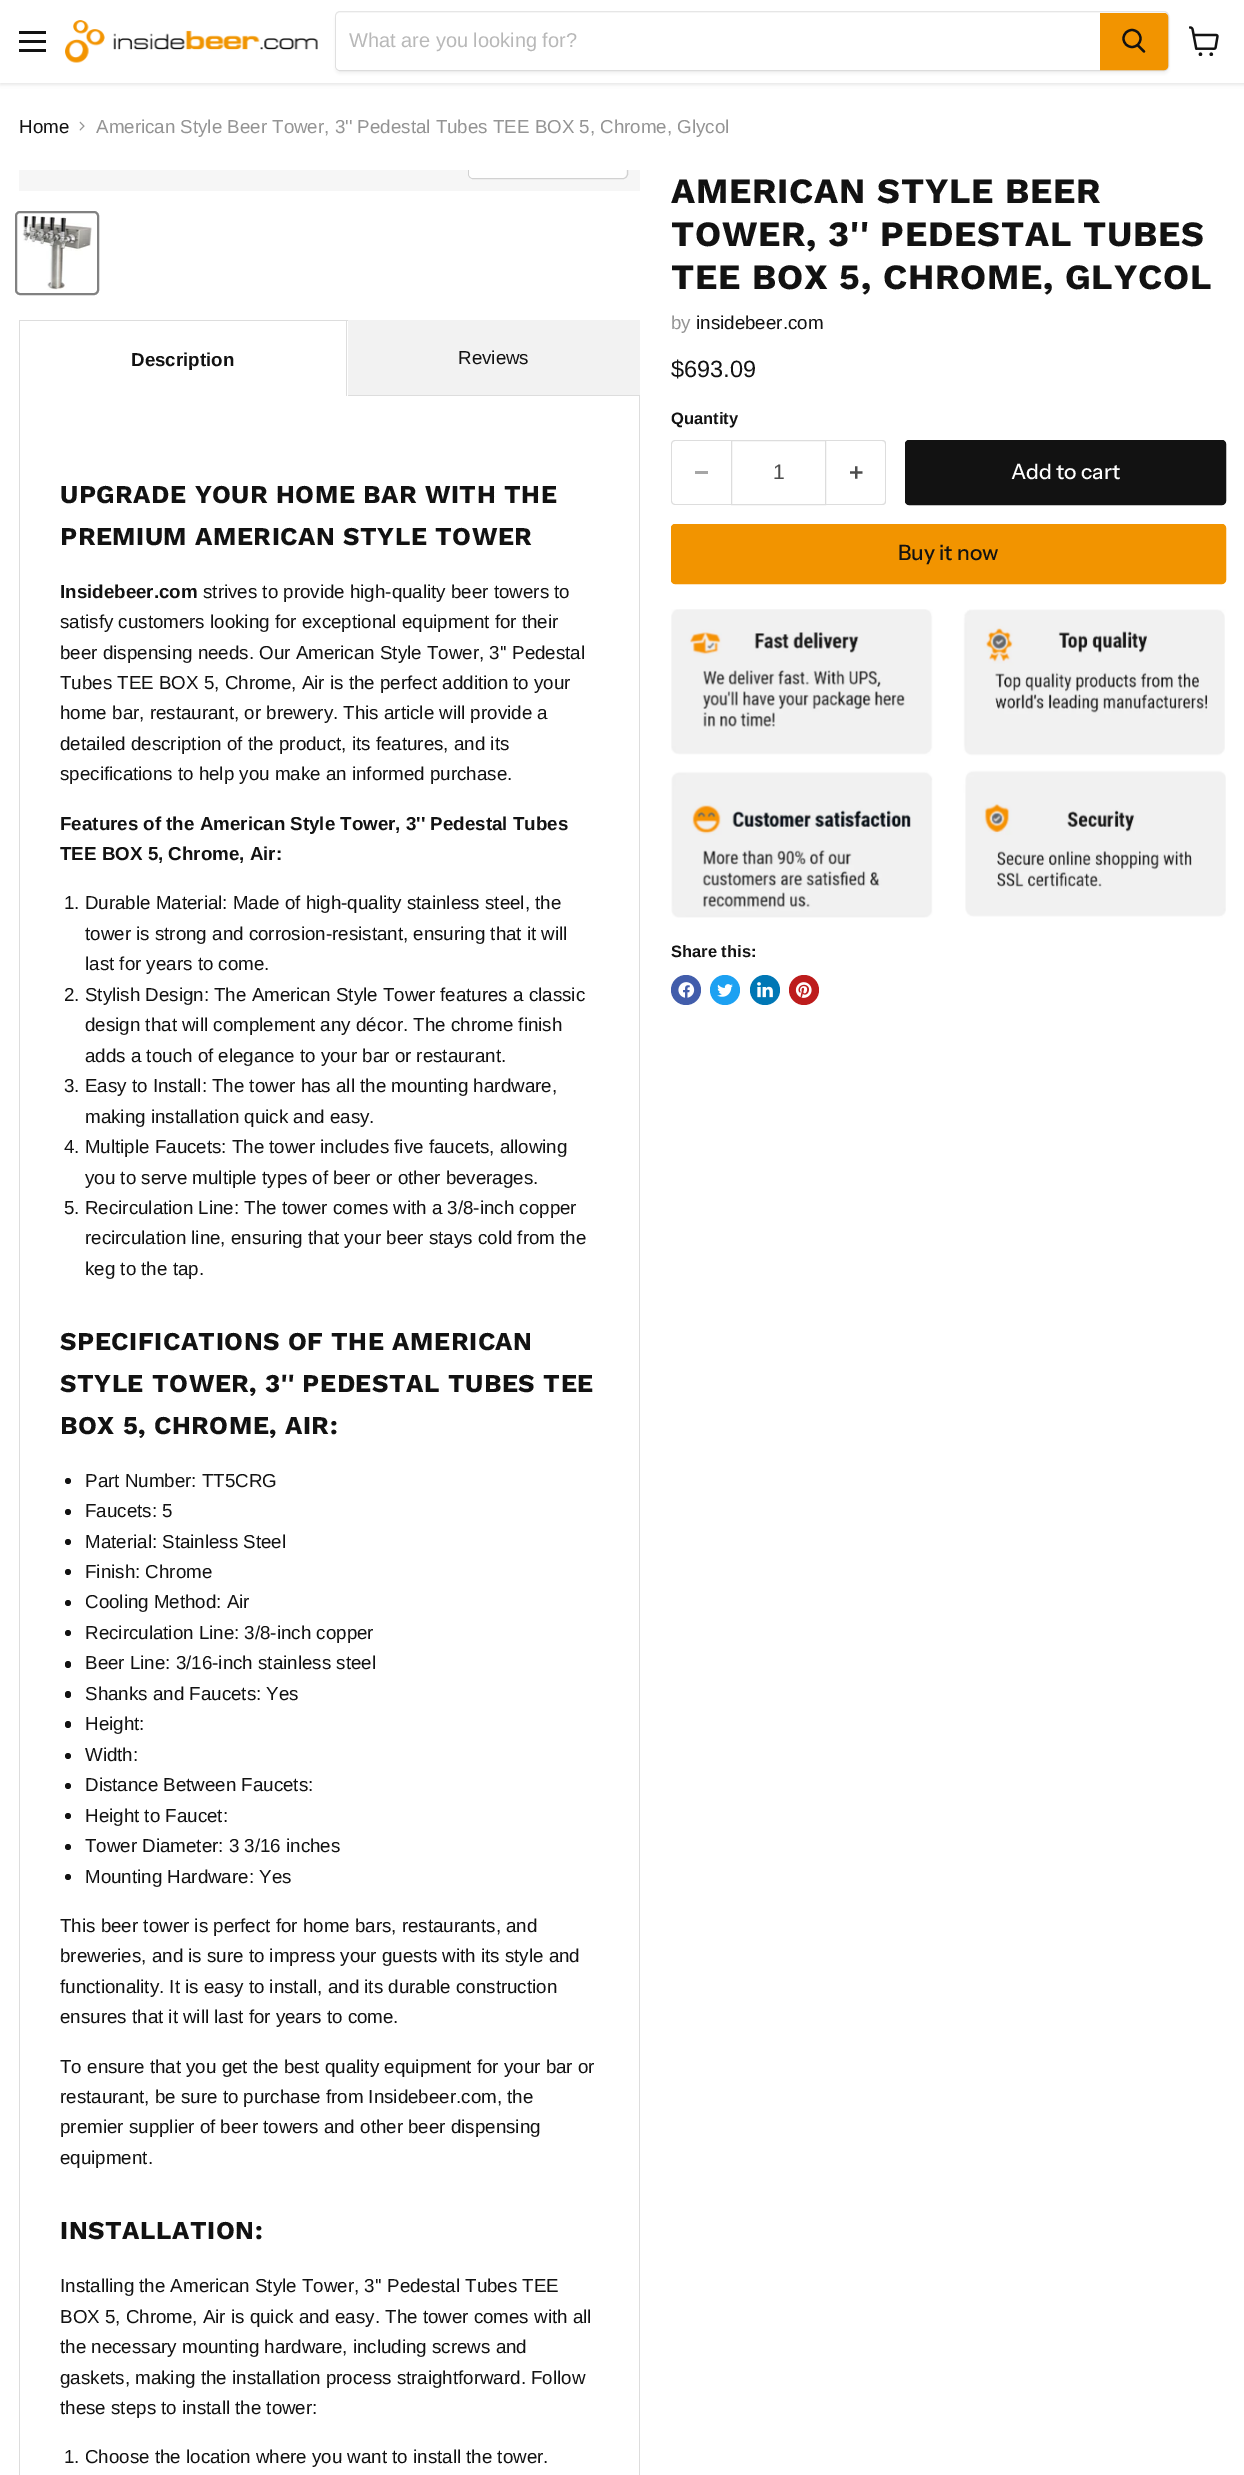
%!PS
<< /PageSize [1244 2475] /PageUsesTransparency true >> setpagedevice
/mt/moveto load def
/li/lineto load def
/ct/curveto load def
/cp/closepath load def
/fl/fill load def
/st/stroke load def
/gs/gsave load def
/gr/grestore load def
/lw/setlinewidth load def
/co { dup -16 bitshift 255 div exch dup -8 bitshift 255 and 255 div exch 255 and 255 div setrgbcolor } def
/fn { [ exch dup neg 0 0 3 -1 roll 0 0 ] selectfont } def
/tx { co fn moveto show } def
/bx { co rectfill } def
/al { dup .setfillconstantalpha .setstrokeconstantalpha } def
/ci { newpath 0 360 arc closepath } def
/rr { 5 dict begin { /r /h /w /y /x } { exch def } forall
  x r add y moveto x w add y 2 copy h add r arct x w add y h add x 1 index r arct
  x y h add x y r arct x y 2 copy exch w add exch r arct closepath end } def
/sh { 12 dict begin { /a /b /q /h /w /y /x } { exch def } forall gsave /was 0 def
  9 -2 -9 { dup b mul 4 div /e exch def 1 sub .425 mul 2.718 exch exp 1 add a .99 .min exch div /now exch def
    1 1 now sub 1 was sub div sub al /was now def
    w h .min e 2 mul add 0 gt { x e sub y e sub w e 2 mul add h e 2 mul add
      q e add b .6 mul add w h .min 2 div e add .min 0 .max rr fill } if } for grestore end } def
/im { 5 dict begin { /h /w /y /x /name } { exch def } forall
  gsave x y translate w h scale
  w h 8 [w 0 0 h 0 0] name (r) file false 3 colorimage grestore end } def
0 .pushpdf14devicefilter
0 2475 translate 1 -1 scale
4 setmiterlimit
0 0 1244 2475 16#FFFFFF bx
16#808080 co
0 1 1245 83 0 2.5 .25 sh
0 0 1244 83 16#FFFFFF bx
19 31 27 3 16#121212 bx
19 40 27 3 16#121212 bx
19 49 27 3 16#121212 bx
(media/1.raw) 65 20 253 43 im
16#808080 co
335 14 834 60 5 2 .11 sh
0.2 al
335.5 11.5 833 59 4.5 rr st
1 al
16#FFFFFF co
340 13 mt 1100 13 li 1100 70 li 340 70 li 338 70 336 68 336 66 ct 336 17 li 336 15 338 13 340 13 ct cp fl
16#F29400 co
1100.5 13.5 mt 1164 13.5 li 1166 13.5 1167.5 15 1167.5 17 ct 1167.5 66 li 1167.5 68 1166 69.5 1164 69.5 ct 1100.5 69.5 li cp gs fl gr
st
16#121212 co
2.2 lw
1 setlinecap
1144 51.5 mt 1138 45.5 li st
0 setlinecap
1132 38.5 8.5 ci st
(media/2.raw) 1189 26 30 30 im
(media/3.raw) 79 121 6 10 im
19 170 621 21 16#F6F6F6 bx
gs
19 170 621 21 rectclip
16#D1D1D1 co
1 lw
468.5 143.5 159 35 4.5 rr st
gr
0.9 al
16#FFFFFF co
469 170 mt 626 170 li 626 174 li 626 176 624 178 622 178 ct 473 178 li 471 178 469 176 469 174 ct cp fl
1 al
16#818181 co
2 lw
16 212 82 82 4 rr st
(media/4.raw) 22 216 70 74 im
19 320 329 1 16#DDDDDD bx
346 320 1 76 16#DDDDDD bx
19 320 1 2155 16#DDDDDD bx
348 320 292 75 16#F2F2F2 bx
348 395 292 1 16#DDDDDD bx
639 396 1 2079 16#DDDDDD bx
16#121212 co
68 1481 3 ci fl
68 1512 3 ci fl
68 1542 3 ci fl
68 1572 3 ci fl
68 1603 3 ci fl
68 1633 3 ci fl
65 1661 6 7 3 rr fl
65 1691 6 7 3 rr fl
65 1721 6 7 3 rr fl
68 1756 3 ci fl
68 1786 3 ci fl
68 1816 3 ci fl
68 1847 3 ci fl
68 1877 3 ci fl
16#DDDDDD co
675 440 mt 731 440 li 731 505 li 675 505 li 673 505 671 503 671 501 ct 671 444 li 671 442 673 440 675 440 ct cp 675 441 mt 731 441 li 731 504 li 675 504 li 674 504 672 503 672 501 ct 672 444 li 672 442 674 441 675 441 ct cp eofill
695 471 13 3 16#A6A6A6 bx
16#DDDDDD co
1 lw
731.5 440.5 94 64 rectstroke
826 440 mt 882 440 li 885 440 886 442 886 444 ct 886 501 li 886 503 885 505 882 505 ct 826 505 li cp 826 441 mt 882 441 li 884 441 885 442 885 444 ct 885 501 li 885 503 884 504 882 504 ct 826 504 li cp eofill
(media/5.raw) 850 466 13 13 im
16#121212 co
905.5 440.5 320 64 3.5 rr gs fl gr
st
16#F29400 co
671.5 524.5 554 59 3.5 rr gs fl gr
st
(media/6.raw) 671 609 555 309 im
16#425DAB co
686 990 15 ci fl
(media/7.raw) 678 982 17 16 im
16#1DA1F2 co
725 990 15 ci fl
(media/8.raw) 717 984 16 13 im
16#0077B5 co
765 990 15 ci fl
(media/9.raw) 757 982 16 16 im
16#BD1C1C co
804 990 15 ci fl
(media/10.raw) 795 982 17 16 im
(What are you looking for?) 349 47 /LiberationSans-Regular 20 16#B8B8B8 tx
(Home) 19 133 /LiberationSans-Regular 18.75 16#121212 tx
(American Style Beer Tower, 3'' Pedestal Tubes TEE BOX 5, Chrome, Glycol) 96 133 /LiberationSans-Regular 18.75 16#949494 tx
(Description) 131 366 /LiberationSans-Bold 18.75 16#121212 tx
(Reviews) 458 364 /LiberationSans-Regular 18.75 16#121212 tx
/WorkSans-Bold 25.6 fn
60 503 mt .5 0 (UPGRADE YOUR HOME BAR WITH THE) ashow
60 545 mt .5 0 (PREMIUM AMERICAN STYLE TOWER) ashow
(Insidebeer.com) 60 598 /LiberationSans-Bold 18.75 16#121212 tx
(strives to provide high-quality beer towers to) 203 598 /LiberationSans-Regular 18.75 16#121212 tx
(satisfy customers looking for exceptional equipment for their) 60 628 /LiberationSans-Regular 18.75 16#121212 tx
(beer dispensing needs. Our American Style Tower, 3'' Pedestal) 60 659 /LiberationSans-Regular 18.75 16#121212 tx
(Tubes TEE BOX 5, Chrome, Air is the perfect addition to your) 60 689 /LiberationSans-Regular 18.75 16#121212 tx
(home bar, restaurant, or brewery. This article will provide a) 60 719 /LiberationSans-Regular 18.75 16#121212 tx
(detailed description of the product, its features, and its) 60 750 /LiberationSans-Regular 18.75 16#121212 tx
(specifications to help you make an informed purchase.) 60 780 /LiberationSans-Regular 18.75 16#121212 tx
(Features of the American Style Tower, 3'' Pedestal Tubes) 60 830 /LiberationSans-Bold 18.75 16#121212 tx
(TEE BOX 5, Chrome, Air:) 60 860 /LiberationSans-Bold 18.75 16#121212 tx
(1. Durable Material: Made of high-quality stainless steel, the) 64 909 /LiberationSans-Regular 18.75 16#121212 tx
(tower is strong and corrosion-resistant, ensuring that it will) 85 940 /LiberationSans-Regular 18.75 16#121212 tx
(last for years to come.) 85 970 /LiberationSans-Regular 18.75 16#121212 tx
(2. Stylish Design: The American Style Tower features a classic) 64 1001 /LiberationSans-Regular 18.75 16#121212 tx
(design that will complement any décor. The chrome finish) 85 1031 /LiberationSans-Regular 18.75 16#121212 tx
(adds a touch of elegance to your bar or restaurant.) 85 1062 /LiberationSans-Regular 18.75 16#121212 tx
(3. Easy to Install: The tower has all the mounting hardware,) 64 1092 /LiberationSans-Regular 18.75 16#121212 tx
(making installation quick and easy.) 85 1123 /LiberationSans-Regular 18.75 16#121212 tx
(4. Multiple Faucets: The tower includes five faucets, allowing) 64 1153 /LiberationSans-Regular 18.75 16#121212 tx
(you to serve multiple types of beer or other beverages.) 85 1184 /LiberationSans-Regular 18.75 16#121212 tx
(5. Recirculation Line: The tower comes with a 3/8-inch copper) 64 1214 /LiberationSans-Regular 18.75 16#121212 tx
(recirculation line, ensuring that your beer stays cold from the) 85 1244 /LiberationSans-Regular 18.75 16#121212 tx
(keg to the tap.) 85 1275 /LiberationSans-Regular 18.75 16#121212 tx
/WorkSans-Bold 25.6 fn
60 1350 mt .5 0 (SPECIFICATIONS OF THE AMERICAN) ashow
60 1392 mt .5 0 (STYLE TOWER, 3'' PEDESTAL TUBES TEE) ashow
60 1434 mt .5 0 (BOX 5, CHROME, AIR:) ashow
(Part Number: TT5CRG) 85 1487 /LiberationSans-Regular 18.75 16#121212 tx
(Faucets: 5) 85 1517 /LiberationSans-Regular 18.75 16#121212 tx
(Material: Stainless Steel) 85 1548 /LiberationSans-Regular 18.75 16#121212 tx
(Finish: Chrome) 85 1578 /LiberationSans-Regular 18.75 16#121212 tx
(Cooling Method: Air) 85 1608 /LiberationSans-Regular 18.75 16#121212 tx
(Recirculation Line: 3/8-inch copper) 85 1639 /LiberationSans-Regular 18.75 16#121212 tx
(Beer Line: 3/16-inch stainless steel) 85 1669 /LiberationSans-Regular 18.75 16#121212 tx
(Shanks and Faucets: Yes) 85 1700 /LiberationSans-Regular 18.75 16#121212 tx
(Height:) 85 1730 /LiberationSans-Regular 18.75 16#121212 tx
(Width:) 85 1761 /LiberationSans-Regular 18.75 16#121212 tx
(Distance Between Faucets:) 85 1791 /LiberationSans-Regular 18.75 16#121212 tx
(Height to Faucet:) 85 1822 /LiberationSans-Regular 18.75 16#121212 tx
(Tower Diameter: 3 3/16 inches) 85 1852 /LiberationSans-Regular 18.75 16#121212 tx
(Mounting Hardware: Yes) 85 1883 /LiberationSans-Regular 18.75 16#121212 tx
(This beer tower is perfect for home bars, restaurants, and) 60 1932 /LiberationSans-Regular 18.75 16#121212 tx
(breweries, and is sure to impress your guests with its style and) 60 1962 /LiberationSans-Regular 18.75 16#121212 tx
(functionality. It is easy to install, and its durable construction) 60 1993 /LiberationSans-Regular 18.75 16#121212 tx
(ensures that it will last for years to come.) 60 2023 /LiberationSans-Regular 18.75 16#121212 tx
(To ensure that you get the best quality equipment for your bar or) 60 2073 /LiberationSans-Regular 18.75 16#121212 tx
(restaurant, be sure to purchase from Insidebeer.com, the) 60 2103 /LiberationSans-Regular 18.75 16#121212 tx
(premier supplier of beer towers and other beer dispensing) 60 2133 /LiberationSans-Regular 18.75 16#121212 tx
(equipment.) 60 2164 /LiberationSans-Regular 18.75 16#121212 tx
/WorkSans-Bold 25.6 fn
60 2239 mt .5 0 (INSTALLATION:) ashow
(Installing the American Style Tower, 3'' Pedestal Tubes TEE) 60 2292 /LiberationSans-Regular 18.75 16#121212 tx
(BOX 5, Chrome, Air is quick and easy. The tower comes with all) 60 2323 /LiberationSans-Regular 18.75 16#121212 tx
(the necessary mounting hardware, including screws and) 60 2353 /LiberationSans-Regular 18.75 16#121212 tx
(gaskets, making the installation process straightforward. Follow) 60 2384 /LiberationSans-Regular 18.75 16#121212 tx
(these steps to install the tower:) 60 2414 /LiberationSans-Regular 18.75 16#121212 tx
(1. Choose the location where you want to install the tower.) 64 2463 /LiberationSans-Regular 18.75 16#121212 tx
/WorkSans-Bold 35.6 fn
671 203 mt .7 0 (AMERICAN STYLE BEER) ashow
671 246 mt .7 0 (TOWER, 3'' PEDESTAL TUBES) ashow
671 289 mt .7 0 (TEE BOX 5, CHROME, GLYCOL) ashow
(by) 671 329 /LiberationSans-Regular 18.75 16#949494 tx
(insidebeer.com) 696 329 /LiberationSans-Regular 18.75 16#121212 tx
($693.09) 671 377 /LiberationSans-Regular 23.5 16#121212 tx
(Quantity) 671 424 /LiberationSans-Bold 16.5 16#121212 tx
(1) 773 479 /LiberationSans-Regular 21 16#4D4D4D tx
(Add to cart) 1011 479 /InstrumentSans-Medium 21 16#FFFFFF tx
(Buy it now) 898 560 /InstrumentSans-Medium 21 16#121212 tx
(Share this:) 671 957 /LiberationSans-Bold 16.5 16#121212 tx
.poppdf14devicefilter showpage
